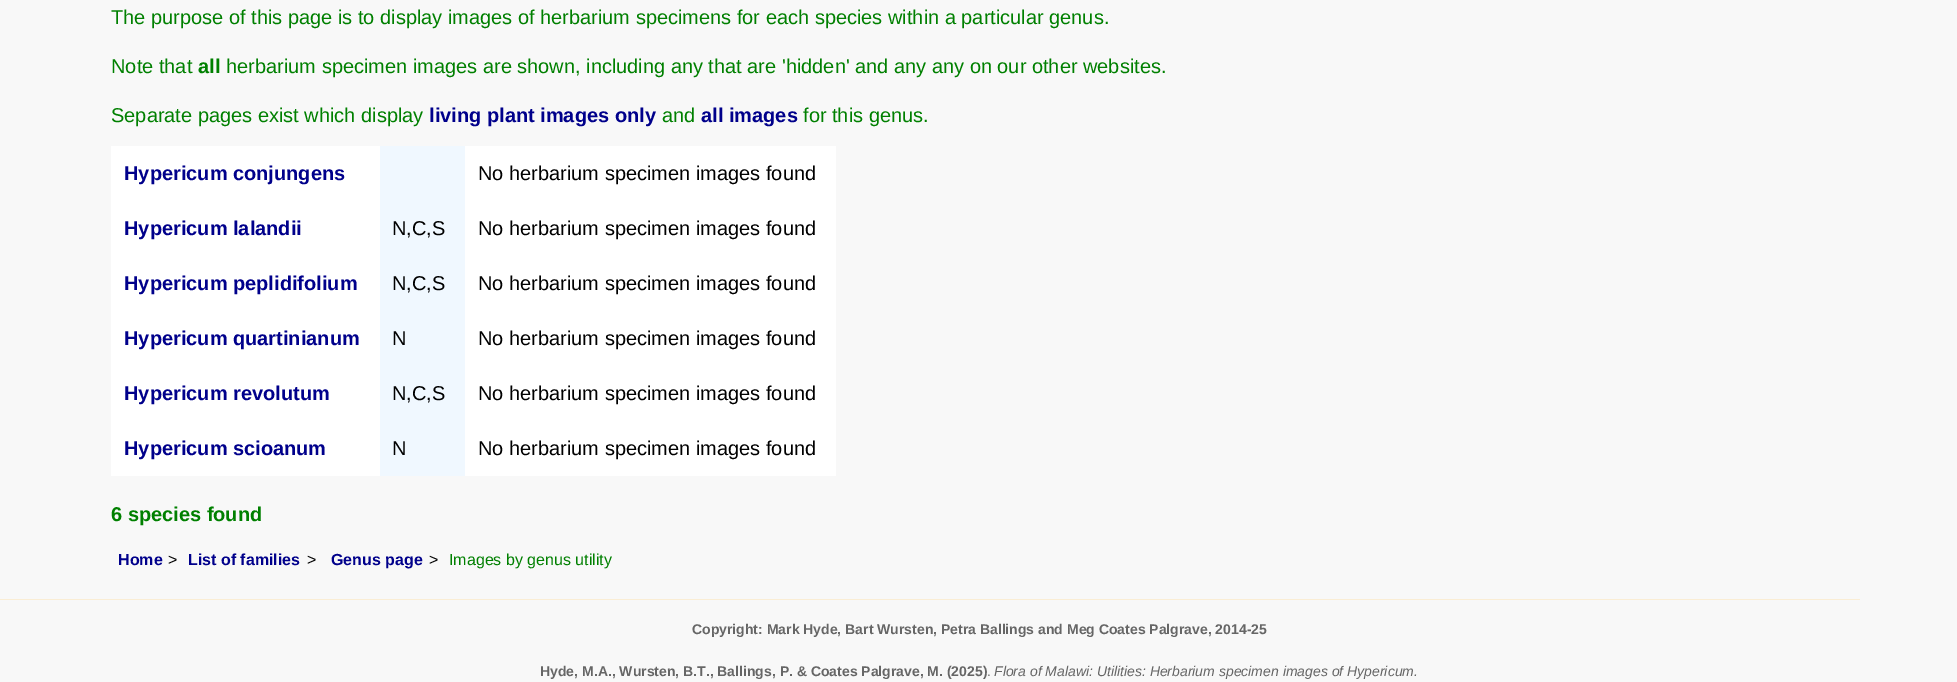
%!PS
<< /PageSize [1957 682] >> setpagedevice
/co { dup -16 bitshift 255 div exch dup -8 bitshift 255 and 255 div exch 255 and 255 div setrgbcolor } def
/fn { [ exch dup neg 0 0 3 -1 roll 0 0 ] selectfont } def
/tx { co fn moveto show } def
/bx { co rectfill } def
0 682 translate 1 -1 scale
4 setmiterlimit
0 0 1957 682 16#F8F8F8 bx
111 146 725 330 16#FFFFFF bx
380 146 85 330 16#F0F8FF bx
0 599 1860 1 16#FAEDD4 bx
(The purpose of this page is to display images of herbarium specimens for each species within a particular genus.) 111 24 /LiberationSans-Regular 20 16#008000 tx
(Note that) 111 73 /LiberationSans-Regular 20 16#008000 tx
(all) 198 73 /LiberationSans-Bold 20 16#008000 tx
(herbarium specimen images are shown, including any that are 'hidden' and any any on our other websites.) 226 73 /LiberationSans-Regular 20 16#008000 tx
(Separate pages exist which display) 111 122 /LiberationSans-Regular 20 16#008000 tx
(living plant images only) 429 122 /LiberationSans-Bold 20 16#00008B tx
(and) 662 122 /LiberationSans-Regular 20 16#008000 tx
(all images) 701 122 /LiberationSans-Bold 20 16#00008B tx
(for this genus.) 803 122 /LiberationSans-Regular 20 16#008000 tx
(Hypericum conjungens) 124 180 /LiberationSans-Bold 20 16#00008B tx
(No herbarium specimen images found) 478 180 /LiberationSans-Regular 20 16#000000 tx
(Hypericum lalandii) 124 235 /LiberationSans-Bold 20 16#00008B tx
(N,C,S) 392 235 /LiberationSans-Regular 20 16#000000 tx
(No herbarium specimen images found) 478 235 /LiberationSans-Regular 20 16#000000 tx
(Hypericum peplidifolium) 124 290 /LiberationSans-Bold 20 16#00008B tx
(N,C,S) 392 290 /LiberationSans-Regular 20 16#000000 tx
(No herbarium specimen images found) 478 290 /LiberationSans-Regular 20 16#000000 tx
(Hypericum quartinianum) 124 345 /LiberationSans-Bold 20 16#00008B tx
(N) 392 345 /LiberationSans-Regular 20 16#000000 tx
(No herbarium specimen images found) 478 345 /LiberationSans-Regular 20 16#000000 tx
(Hypericum revolutum) 124 400 /LiberationSans-Bold 20 16#00008B tx
(N,C,S) 392 400 /LiberationSans-Regular 20 16#000000 tx
(No herbarium specimen images found) 478 400 /LiberationSans-Regular 20 16#000000 tx
(Hypericum scioanum) 124 455 /LiberationSans-Bold 20 16#00008B tx
(N) 392 455 /LiberationSans-Regular 20 16#000000 tx
(No herbarium specimen images found) 478 455 /LiberationSans-Regular 20 16#000000 tx
(6 species found) 111 521 /LiberationSans-Bold 20 16#008000 tx
(Home) 118 565 /LiberationSans-Bold 16 16#00008B tx
(>) 168 565 /LiberationSans-Regular 16 16#000000 tx
(List of families) 188 565 /LiberationSans-Bold 16 16#00008B tx
(>) 307 565 /LiberationSans-Regular 16 16#000000 tx
(Genus page) 331 565 /LiberationSans-Bold 16 16#00008B tx
(>) 429 565 /LiberationSans-Regular 16 16#000000 tx
(Images by genus utility) 449 565 /LiberationSans-Regular 16 16#008000 tx
(Copyright: Mark Hyde, Bart Wursten, Petra Ballings and Meg Coates Palgrave, 2014-25) 692 634 /LiberationSans-Bold 14 16#666666 tx
(Hyde, M.A., Wursten, B.T., Ballings, P. & Coates Palgrave, M. \(2025\)) 540 676 /LiberationSans-Bold 14 16#666666 tx
(.) 987 676 /LiberationSans-Regular 14 16#666666 tx
(Flora of Malawi: Utilities: Herbarium specimen images of Hypericum.) 994 676 /LiberationSans-Italic 14 16#666666 tx
showpage
